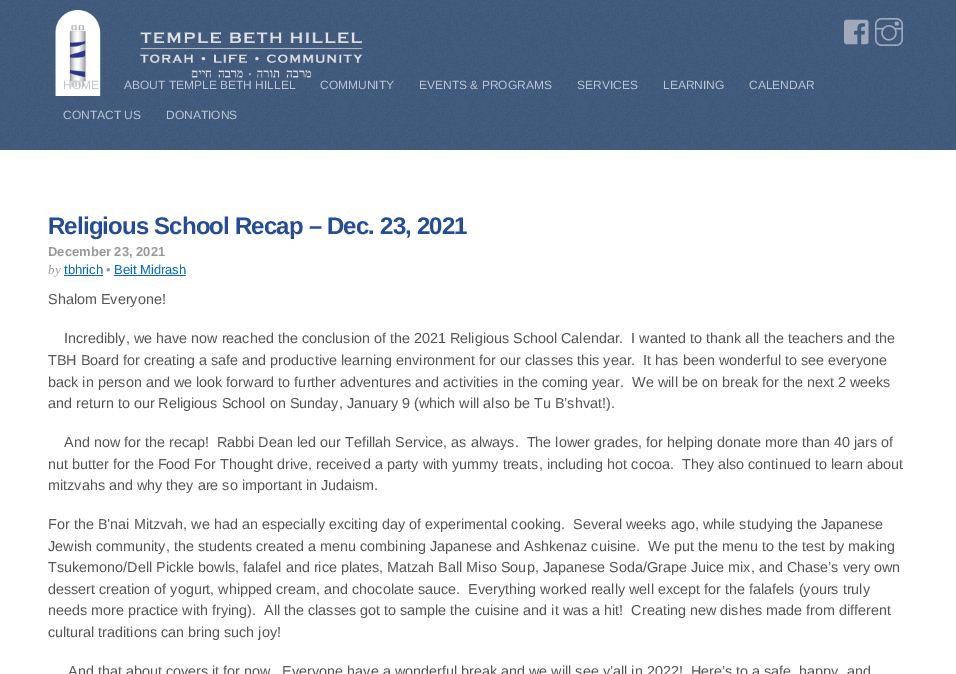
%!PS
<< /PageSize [956 674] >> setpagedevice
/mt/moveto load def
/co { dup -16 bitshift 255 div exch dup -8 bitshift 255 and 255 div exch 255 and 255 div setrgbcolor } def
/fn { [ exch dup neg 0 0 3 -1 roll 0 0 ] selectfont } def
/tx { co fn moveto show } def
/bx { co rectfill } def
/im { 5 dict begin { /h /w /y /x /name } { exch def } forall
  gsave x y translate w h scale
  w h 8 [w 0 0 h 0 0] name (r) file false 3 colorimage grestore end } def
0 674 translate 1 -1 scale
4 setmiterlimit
0 0 956 674 16#FFFFFF bx
(media/1.raw) 0 0 956 150 im
(media/2.raw) 55 10 308 86 im
(media/3.raw) 844 19 25 26 im
(media/4.raw) 875 18 28 28 im
64 275 39 1 16#0069CB bx
114 275 72 1 16#0069CB bx
(HOME) 63 89 /LiberationSans-Regular 12 16#BFC5D1 tx
(ABOUT TEMPLE BETH HILLEL) 124 89 /LiberationSans-Regular 12 16#BFC5D1 tx
(COMMUNITY) 320 89 /LiberationSans-Regular 12 16#BFC5D1 tx
(EVENTS & PROGRAMS) 419 89 /LiberationSans-Regular 12 16#BFC5D1 tx
(SERVICES) 577 89 /LiberationSans-Regular 12 16#BFC5D1 tx
(LEARNING) 663 89 /LiberationSans-Regular 12 16#BFC5D1 tx
(CALENDAR) 749 89 /LiberationSans-Regular 12 16#BFC5D1 tx
(CONTACT US) 63 119 /LiberationSans-Regular 12 16#BFC5D1 tx
(DONATIONS) 166 119 /LiberationSans-Regular 12 16#BFC5D1 tx
/LiberationSans-Bold 24 fn
16#234D98 co
48 234 mt -.85 0 (Religious School Recap – Dec. 23, 2021) ashow
(December 23, 2021) 48 256 /LiberationSans-Bold 13 16#999999 tx
(by) 48 274 /LiberationSerif-Italic 13 16#999999 tx
(tbhrich) 64 274 /LiberationSans-Regular 13 16#0069CB tx
(•) 106 274 /LiberationSans-Regular 13 16#999999 tx
(Beit Midrash) 114 274 /LiberationSans-Regular 13 16#0069CB tx
(Shalom Everyone!) 48 304 /LiberationSans-Regular 14.4 16#555555 tx
(Incredibly, we have now reached the conclusion of the 2021 Religious School Calendar.  I wanted to thank all the teachers and the) 64 343 /LiberationSans-Regular 14.4 16#555555 tx
(TBH Board for creating a safe and productive learning environment for our classes this year.  It has been wonderful to see everyone) 48 365 /LiberationSans-Regular 14.4 16#555555 tx
(back in person and we look forward to further adventures and activities in the coming year.  We will be on break for the next 2 weeks) 48 387 /LiberationSans-Regular 14.4 16#555555 tx
(and return to our Religious School on Sunday, January 9 \(which will also be Tu B’shvat!\).) 48 408 /LiberationSans-Regular 14.4 16#555555 tx
(And now for the recap!  Rabbi Dean led our Tefillah Service, as always.  The lower grades, for helping donate more than 40 jars of) 64 447 /LiberationSans-Regular 14.4 16#555555 tx
(nut butter for the Food For Thought drive, received a party with yummy treats, including hot cocoa.  They also continued to learn about) 48 469 /LiberationSans-Regular 14.4 16#555555 tx
(mitzvahs and why they are so important in Judaism.) 48 490 /LiberationSans-Regular 14.4 16#555555 tx
(For the B’nai Mitzvah, we had an especially exciting day of experimental cooking.  Several weeks ago, while studying the Japanese) 48 529 /LiberationSans-Regular 14.4 16#555555 tx
(Jewish community, the students created a menu combining Japanese and Ashkenaz cuisine.  We put the menu to the test by making) 48 551 /LiberationSans-Regular 14.4 16#555555 tx
(Tsukemono/Dell Pickle bowls, falafel and rice plates, Matzah Ball Miso Soup, Japanese Soda/Grape Juice mix, and Chase’s very own) 48 572 /LiberationSans-Regular 14.4 16#555555 tx
(dessert creation of yogurt, whipped cream, and chocolate sauce.  Everything worked really well except for the falafels \(yours truly) 48 594 /LiberationSans-Regular 14.4 16#555555 tx
(needs more practice with frying\).  All the classes got to sample the cuisine and it was a hit!  Creating new dishes made from different) 48 615 /LiberationSans-Regular 14.4 16#555555 tx
(cultural traditions can bring such joy!) 48 637 /LiberationSans-Regular 14.4 16#555555 tx
(And that about covers it for now.  Everyone have a wonderful break and we will see y’all in 2022!  Here’s to a safe, happy, and) 68 676 /LiberationSans-Regular 14.4 16#555555 tx
showpage
